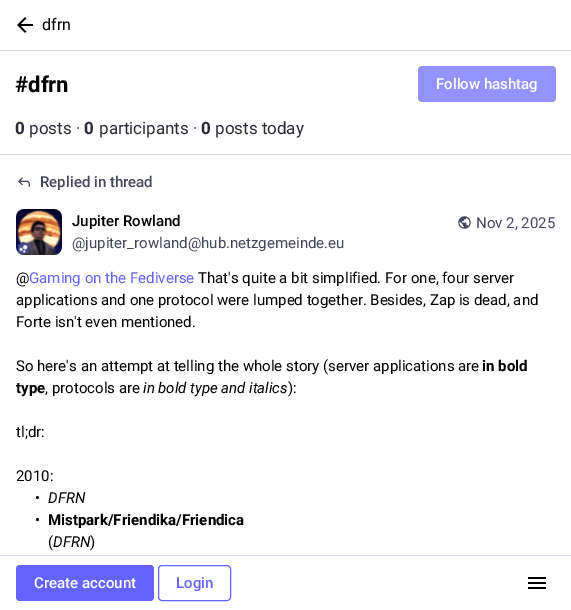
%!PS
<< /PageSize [571 610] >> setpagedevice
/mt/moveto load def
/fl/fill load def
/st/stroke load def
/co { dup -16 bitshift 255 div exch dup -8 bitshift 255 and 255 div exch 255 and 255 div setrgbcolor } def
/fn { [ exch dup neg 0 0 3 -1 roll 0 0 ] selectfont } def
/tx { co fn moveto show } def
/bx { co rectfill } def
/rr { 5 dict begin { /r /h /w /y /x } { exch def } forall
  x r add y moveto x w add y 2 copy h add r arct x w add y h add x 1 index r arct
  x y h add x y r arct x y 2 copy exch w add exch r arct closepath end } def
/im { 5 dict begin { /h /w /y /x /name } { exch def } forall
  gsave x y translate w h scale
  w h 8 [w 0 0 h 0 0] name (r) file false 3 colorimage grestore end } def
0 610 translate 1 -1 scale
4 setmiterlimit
0 0 571 610 16#FFFFFF bx
0 50 571 1 16#D9D9E8 bx
(media/1.raw) 17 17 16 16 im
0 154 571 1 16#D9D9E8 bx
16#9293FF co
418 66 138 36 4 rr fl
(media/2.raw) 18 177 12 10 im
16#E8E6F0 co
16 209 46 46 8 rr fl
(media/3.raw) 16 209 46 46 im
(media/4.raw) 458 216 13 13 im
0 555 571 1 16#D9D9E8 bx
16#6364FF co
16 565 138 36 4 rr fl
158.5 565.5 72 35 3.5 rr st
(media/5.raw) 528 577 18 12 im
(dfrn) 42 30 /Roboto-Regular 16 16#000000 tx
(#dfrn) 15 92 /Roboto-Bold 22 16#000000 tx
(Follow hashtag) 436 89 /Roboto-Medium 15 16#FFFFFF tx
(0) 15 134 /Roboto-Bold 17 16#292938 tx
(posts ·) 29 134 /Roboto-Regular 17 16#292938 tx
(0) 84 134 /Roboto-Bold 17 16#292938 tx
(participants ·) 99 134 /Roboto-Regular 17 16#292938 tx
(0) 201 134 /Roboto-Bold 17 16#292938 tx
(posts today) 215 134 /Roboto-Regular 17 16#292938 tx
(Replied in thread) 40 187 /Roboto-Medium 15 16#45455F tx
(Jupiter Rowland) 72 226 /Roboto-Medium 15 16#000000 tx
(@jupiter_rowland@hub.netzgemeinde.eu) 72 248 /Roboto-Regular 15 16#45455F tx
(Nov 2, 2025) 476 228 /Roboto-Regular 15 16#45455F tx
(@) 16 283 /Roboto-Regular 15 16#000000 tx
(Gaming on the Fediverse) 29 283 /Roboto-Regular 15 16#6364FF tx
(That's quite a bit simplified. For one, four server) 198 283 /Roboto-Regular 15 16#000000 tx
16 305 mt -.1 0 32 (applications and one protocol were lumped together. Besides, Zap is dead, and) widthshow
(Forte isn't even mentioned.) 16 327 /Roboto-Regular 15 16#000000 tx
(So here's an attempt at telling the whole story \(server applications are) 16 371 /Roboto-Regular 15 16#000000 tx
(in bold) 482 371 /Roboto-Bold 15 16#000000 tx
(type) 16 393 /Roboto-Bold 15 16#000000 tx
(, protocols are) 45 393 /Roboto-Regular 15 16#000000 tx
(in bold type and italics) 143 393 /Roboto-Italic 15 16#000000 tx
(\):) 288 393 /Roboto-Regular 15 16#000000 tx
(tl;dr:) 16 437 /Roboto-Regular 15 16#000000 tx
(2010:) 16 481 /Roboto-Regular 15 16#000000 tx
(•) 35 503 /Roboto-Regular 15 16#000000 tx
(DFRN) 48 503 /Roboto-Italic 15 16#000000 tx
(•) 35 525 /Roboto-Regular 15 16#000000 tx
(Mistpark/Friendika/Friendica) 48 525 /Roboto-Bold 15 16#000000 tx
(\() 48 547 /Roboto-Regular 15 16#000000 tx
(DFRN) 53 547 /Roboto-Italic 15 16#000000 tx
(\)) 90 547 /Roboto-Regular 15 16#000000 tx
(Create account) 34 588 /Roboto-Medium 15 16#FFFFFF tx
(Login) 176 588 /Roboto-Medium 15 16#6364FF tx
showpage
